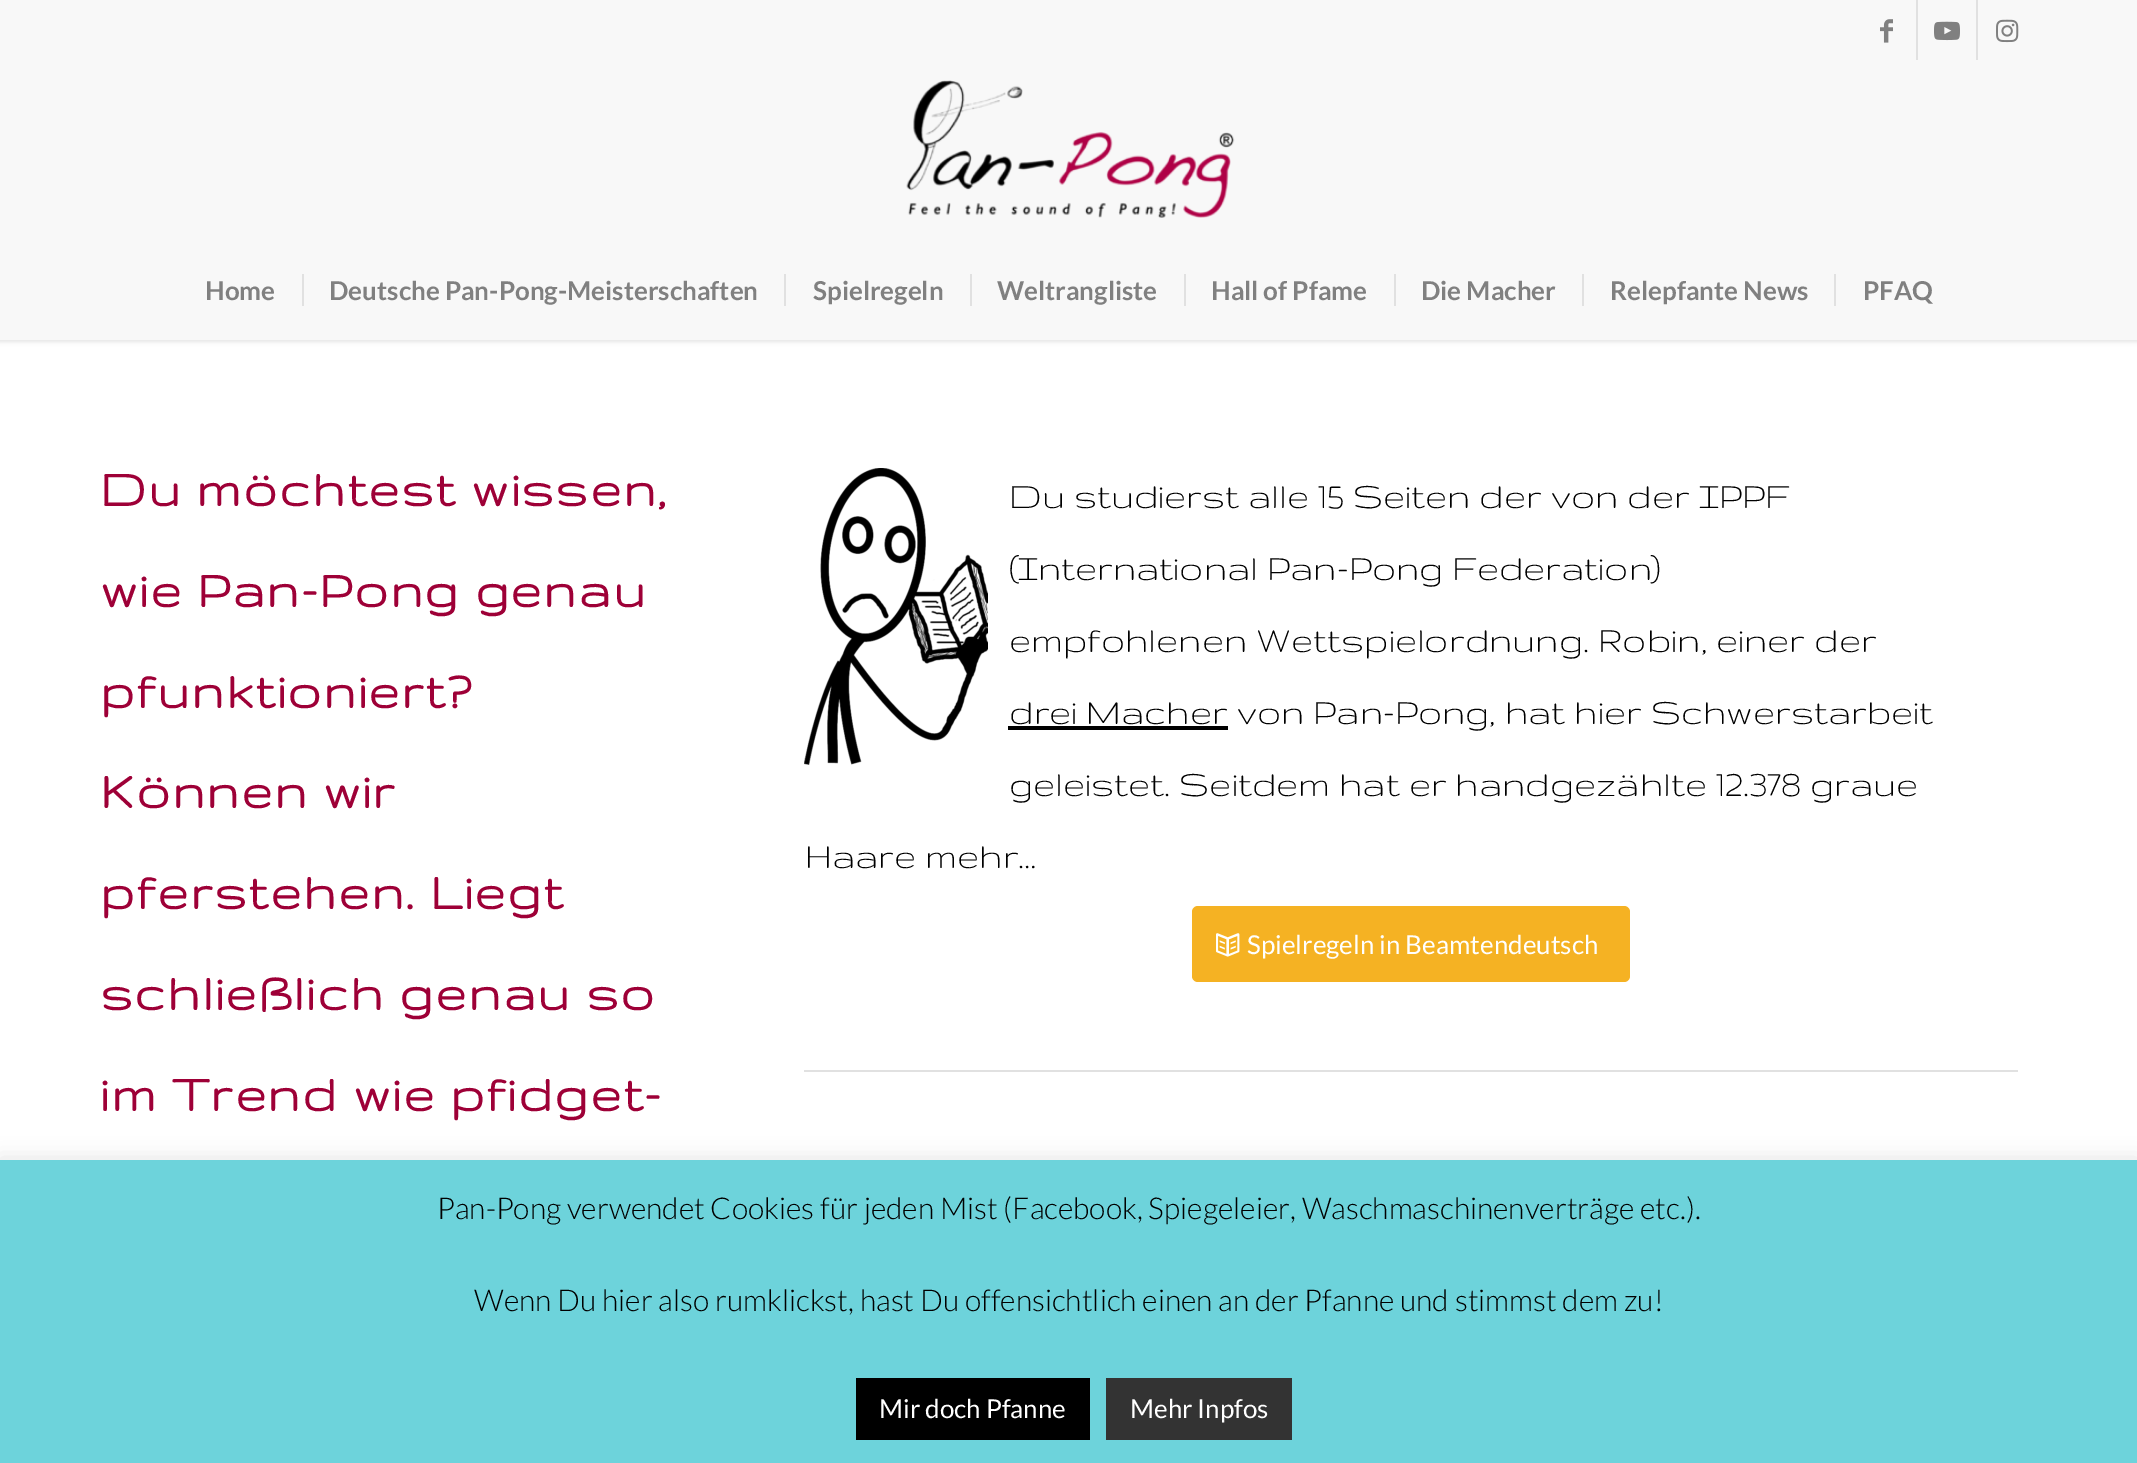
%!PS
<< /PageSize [2137 1463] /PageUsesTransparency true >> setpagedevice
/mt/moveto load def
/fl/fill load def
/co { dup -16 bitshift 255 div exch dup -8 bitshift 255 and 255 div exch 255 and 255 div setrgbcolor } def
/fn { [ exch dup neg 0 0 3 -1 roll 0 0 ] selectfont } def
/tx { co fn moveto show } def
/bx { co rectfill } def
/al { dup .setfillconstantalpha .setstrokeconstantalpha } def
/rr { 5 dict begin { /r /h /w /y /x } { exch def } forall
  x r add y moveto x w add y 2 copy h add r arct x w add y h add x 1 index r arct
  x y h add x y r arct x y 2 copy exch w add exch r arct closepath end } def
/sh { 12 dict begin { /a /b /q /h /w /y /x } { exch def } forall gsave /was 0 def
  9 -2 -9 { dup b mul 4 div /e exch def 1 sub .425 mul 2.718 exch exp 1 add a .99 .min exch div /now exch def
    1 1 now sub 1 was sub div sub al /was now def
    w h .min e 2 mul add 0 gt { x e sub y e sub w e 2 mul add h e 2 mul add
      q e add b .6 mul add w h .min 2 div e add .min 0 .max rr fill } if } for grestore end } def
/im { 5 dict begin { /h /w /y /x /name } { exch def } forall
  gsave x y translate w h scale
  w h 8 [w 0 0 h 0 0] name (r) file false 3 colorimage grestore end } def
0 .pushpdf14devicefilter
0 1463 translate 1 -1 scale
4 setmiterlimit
0 0 2137 1463 16#FFFFFF bx
16#000000 co
-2 -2 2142 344 0 2 .1 sh
0 0 2137 340 16#F8F8F8 bx
1916 0 2 60 16#E1E1E1 bx
(media/1.raw) 1880 19 13 24 im
1976 0 2 60 16#E1E1E1 bx
(media/2.raw) 1934 21 26 20 im
(media/3.raw) 1996 19 23 24 im
(media/4.raw) 906 80 329 138 im
302 274 2 32 16#E1E1E1 bx
784 274 2 32 16#E1E1E1 bx
970 274 2 32 16#E1E1E1 bx
1184 274 2 32 16#E1E1E1 bx
1394 274 2 32 16#E1E1E1 bx
1582 274 2 32 16#E1E1E1 bx
1834 274 2 32 16#E1E1E1 bx
(media/5.raw) 804 468 184 297 im
1008 726 220 4 16#000000 bx
16#F5B223 co
1192 906 438 76 6 rr fl
(media/6.raw) 1216 933 24 24 im
804 1070 1214 2 16#E1E1E1 bx
16#ACABAB co
0 1158 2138 304 0 10 .3 sh
0 1160 2137 303 16#6DD3DB bx
856 1378 234 62 16#000000 bx
1106 1378 186 62 16#333333 bx
(Home) 205 300 /Lato-Bold 26 16#808080 tx
(Deutsche Pan-Pong-Meisterschaften) 329 300 /Lato-Bold 26 16#808080 tx
(Spielregeln) 813 300 /Lato-Bold 26 16#808080 tx
(Weltrangliste) 997 300 /Lato-Bold 26 16#808080 tx
(Hall of Pfame) 1211 300 /Lato-Bold 26 16#808080 tx
(Die Macher) 1421 300 /Lato-Bold 26 16#808080 tx
(Relepfante News) 1610 300 /Lato-Bold 26 16#808080 tx
(PFAQ) 1863 300 /Lato-Bold 26 16#808080 tx
/Gruppo-Bold 56 fn
16#9E0037 co
100 506 mt 2 0 (Du möchtest wissen,) ashow
100 607 mt 2 0 (wie Pan-Pong genau) ashow
100 708 mt 2 0 (pfunktioniert?) ashow
100 808 mt 2 0 (Können wir) ashow
100 909 mt 2 0 (pferstehen. Liegt) ashow
100 1010 mt 2 0 (schließlich genau so) ashow
100 1111 mt 2 0 (im Trend wie pfidget-) ashow
(Du studierst alle 15 Seiten der von der IPPF) 1009 508 /Gruppo-Regular 40 16#000000 tx
(\(International Pan-Pong Federation\)) 1009 580 /Gruppo-Regular 40 16#000000 tx
(empfohlenen Wettspielordnung. Robin, einer der) 1009 652 /Gruppo-Regular 40 16#000000 tx
(drei Macher von Pan-Pong, hat hier Schwerstarbeit) 1009 724 /Gruppo-Regular 40 16#000000 tx
(geleistet. Seitdem hat er handgezählte 12.378 graue) 1009 796 /Gruppo-Regular 40 16#000000 tx
(Haare mehr…) 805 868 /Gruppo-Regular 40 16#000000 tx
(Spielregeln in Beamtendeutsch) 1247 954 /Lato-Regular 26 16#FFFFFF tx
(Pan-Pong verwendet Cookies für jeden Mist \(Facebook, Spiegeleier, Waschmaschinenverträge etc.\).) 437 1219 /Lato-Light 30 16#000000 tx
(Wenn Du hier also rumklickst, hast Du offensichtlich einen an der Pfanne und stimmst dem zu!) 474 1311 /Lato-Light 30 16#000000 tx
(Mir doch Pfanne) 879 1418 /Lato-Regular 26 16#FFFFFF tx
(Mehr Inpfos) 1130 1418 /Lato-Regular 26 16#FFFFFF tx
.poppdf14devicefilter showpage
